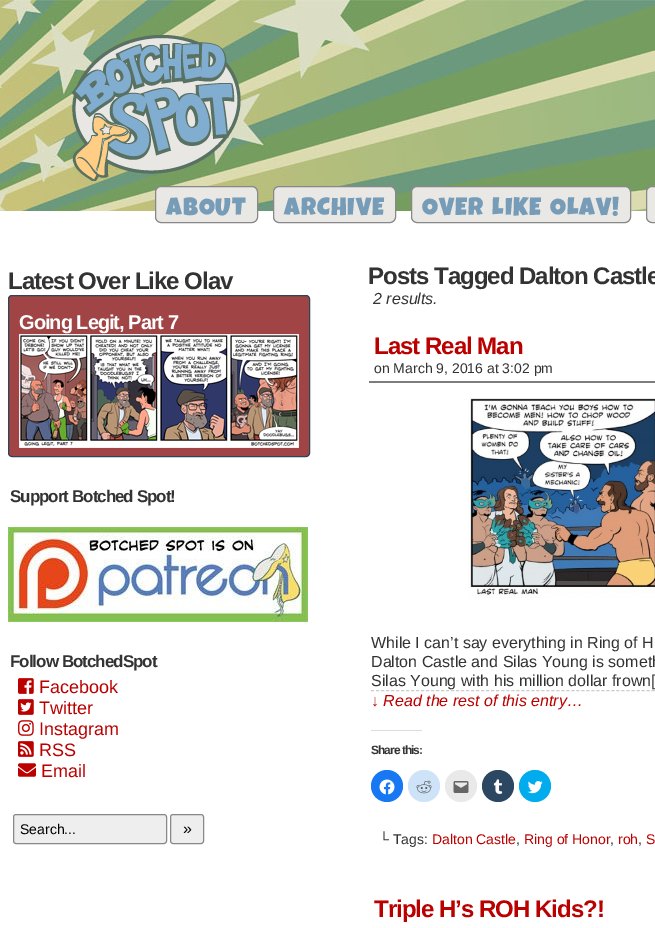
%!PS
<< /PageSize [655 928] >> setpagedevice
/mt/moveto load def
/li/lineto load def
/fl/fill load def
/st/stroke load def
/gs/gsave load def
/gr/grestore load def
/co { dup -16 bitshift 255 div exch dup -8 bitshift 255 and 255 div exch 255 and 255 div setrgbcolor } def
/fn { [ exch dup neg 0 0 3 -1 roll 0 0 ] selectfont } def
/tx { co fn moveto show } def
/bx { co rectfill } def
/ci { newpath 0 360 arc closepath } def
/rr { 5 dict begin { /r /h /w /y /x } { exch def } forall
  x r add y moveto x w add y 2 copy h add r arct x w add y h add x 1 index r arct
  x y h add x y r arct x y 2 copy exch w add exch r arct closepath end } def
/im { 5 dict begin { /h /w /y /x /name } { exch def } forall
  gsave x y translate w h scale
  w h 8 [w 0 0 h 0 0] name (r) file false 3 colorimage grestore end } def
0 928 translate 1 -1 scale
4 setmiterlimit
0 0 655 928 16#FFFFFF bx
(media/1.raw) 0 0 655 211 im
(media/2.raw) 71 35 170 146 im
16#EAE8E5 co
155.5 186.5 102 36 5.5 rr gs fl gr
16#888888 co
st
16#EAE8E5 co
273.5 186.5 122 36 5.5 rr gs fl gr
16#888888 co
st
16#EAE8E5 co
411.5 186.5 219 36 5.5 rr gs fl gr
16#888888 co
st
16#EAE8E5 co
646.5 186.5 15 36 5.5 rr gs fl gr
16#888888 co
st
16#A04445 co
8.5 295.5 301 161 3.5 rr gs fl gr
16#2E4556 co
st
(media/3.raw) 19 334 280 114 im
(media/4.raw) 8 527 300 95 im
(media/5.raw) 18 678 16 16 im
(media/6.raw) 18 699 16 16 im
(media/7.raw) 18 720 16 16 im
(media/8.raw) 18 741 16 16 im
(media/9.raw) 18 763 18 14 im
16#EEEEEE co
13.5 814.5 153 29 2.5 rr gs fl gr
16#888888 co
st
16#EEEEEE co
170.5 814.5 33 29 2.5 rr gs fl gr
16#888888 co
st
369 381 286 2 16#7D7D7D bx
(media/10.raw) 468 398 187 200 im
16#CCCCCC co
[3 2.01] 0 setdash
371 690.5 mt 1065 690.5 li st
371 730 51 1 16#DCDCDE bx
16#1877F2 co
387 786 16 ci fl
(media/11.raw) 379 779 16 16 im
16#CEE3F8 co
424 786 16 ci fl
(media/12.raw) 416 780 16 14 im
16#E9E9E9 co
461 786 16 ci fl
(media/13.raw) 453 781 16 12 im
16#2C4762 co
498 786 16 ci fl
(media/14.raw) 493 779 10 15 im
16#00ACEE co
535 786 16 ci fl
(media/15.raw) 527 781 16 13 im
/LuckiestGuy-Regular 25 fn
16#769CB7 co
166 215 mt 1 0 (ABOUT) ashow
284 215 mt 1 0 (ARCHIVE) ashow
422 215 mt 2 0 32 1 0 (OVER LIKE OLAV!) awidthshow
/LiberationSans-Bold 24 fn
16#333333 co
8 289 mt -1 0 (Latest Over Like Olav) ashow
/LiberationSans-Bold 20 fn
16#FFFFFF co
19 329 mt -1 0 (Going Legit, Part 7) ashow
/LiberationSans-Bold 17 fn
16#333333 co
10 502 mt -1 0 (Support Botched Spot!) ashow
10 667 mt -1 0 (Follow BotchedSpot) ashow
(Facebook) 39 693 /LiberationSans-Regular 18 16#BB0000 tx
(Twitter) 39 714 /LiberationSans-Regular 18 16#BB0000 tx
(Instagram) 39 735 /LiberationSans-Regular 18 16#BB0000 tx
(RSS) 39 756 /LiberationSans-Regular 18 16#BB0000 tx
(Email) 41 777 /LiberationSans-Regular 18 16#BB0000 tx
(Search...) 20 834 /LiberationSans-Regular 14 16#000000 tx
(») 183 834 /LiberationSans-Regular 16 16#000000 tx
/LiberationSans-Bold 24 fn
16#333333 co
368 284 mt -1 0 (Posts Tagged Dalton Castle) ashow
(2 results.) 373 304 /LiberationSans-Italic 16 16#333333 tx
/LiberationSans-Bold 24 fn
16#BB0000 co
374 354 mt -1 0 (Last Real Man) ashow
(on March 9, 2016 at 3:02 pm) 374 373 /LiberationSans-Regular 14 16#333333 tx
(While I can’t say everything in Ring of H) 371 648 /LiberationSans-Regular 16 16#333333 tx
(Dalton Castle and Silas Young is someth) 371 667 /LiberationSans-Regular 16 16#333333 tx
(Silas Young with his million dollar frown[) 371 686 /LiberationSans-Regular 16 16#333333 tx
(↓ Read the rest of this entry…) 371 706 /LiberationSans-Italic 16 16#BB0000 tx
/LiberationSans-Bold 12 fn
16#333333 co
371 754 mt -1 0 (Share this:) ashow
(└ Tags:) 379 844 /LiberationSans-Regular 14 16#333333 tx
(Dalton Castle) 432 844 /LiberationSans-Regular 14 16#BB0000 tx
(,) 516 844 /LiberationSans-Regular 14 16#333333 tx
(Ring of Honor) 524 844 /LiberationSans-Regular 14 16#BB0000 tx
(,) 610 844 /LiberationSans-Regular 14 16#333333 tx
(roh) 618 844 /LiberationSans-Regular 14 16#BB0000 tx
(,) 638 844 /LiberationSans-Regular 14 16#333333 tx
(S) 646 844 /LiberationSans-Regular 14 16#BB0000 tx
/LiberationSans-Bold 24 fn
374 917 mt -1 0 (Triple H’s ROH Kids?!) ashow
showpage
